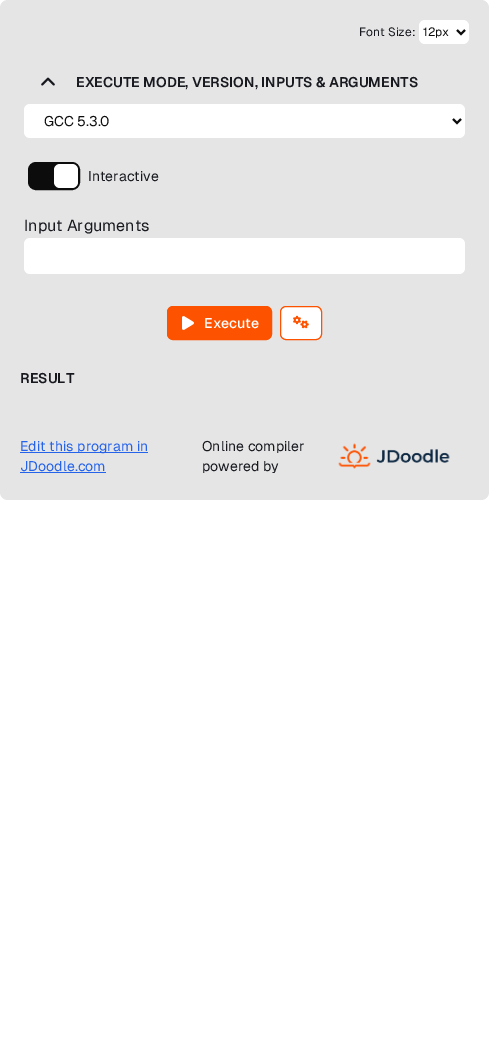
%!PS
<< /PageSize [489 1046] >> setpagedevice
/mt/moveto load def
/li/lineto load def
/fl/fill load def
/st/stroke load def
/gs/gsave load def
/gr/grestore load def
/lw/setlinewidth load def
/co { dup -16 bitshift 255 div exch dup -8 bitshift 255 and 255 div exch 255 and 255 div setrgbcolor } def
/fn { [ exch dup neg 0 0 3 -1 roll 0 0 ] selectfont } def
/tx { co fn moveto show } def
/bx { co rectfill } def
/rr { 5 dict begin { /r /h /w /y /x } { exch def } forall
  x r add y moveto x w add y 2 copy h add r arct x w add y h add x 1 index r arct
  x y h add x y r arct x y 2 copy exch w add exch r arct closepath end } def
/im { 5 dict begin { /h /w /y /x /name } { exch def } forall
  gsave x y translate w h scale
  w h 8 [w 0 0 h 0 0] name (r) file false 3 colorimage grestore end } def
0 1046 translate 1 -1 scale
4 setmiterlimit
0 0 489 1046 16#FFFFFF bx
16#E5E5E5 co
0 0 489 500 8 rr fl
16#FFFFFF co
419 20 50 24 6 rr fl
16#0D0C0C co
2 lw
457 30 mt 461 34 li 465 30 li st
(media/1.raw) 41 77 14 9 im
16#FFFFFF co
24 104 441 34 6 rr fl
16#0D0C0C co
453 119 mt 457 123 li 461 119 li st
29 163 50 26 7 rr gs fl gr
st
16#FFFFFF co
54 164 24 24 6 rr fl
24 238 441 36 6 rr fl
16#FD5200 co
167.5 306.5 104 33 5.5 rr gs fl gr
1 lw
st
(media/2.raw) 182 316 12 14 im
16#FFFFFF co
280.5 306.5 41 33 5.5 rr gs fl gr
16#FD5200 co
st
(media/3.raw) 293 315 16 14 im
20 452 128 1 16#2563EB bx
20 472 86 1 16#2563EB bx
(media/4.raw) 338 443 112 26 im
(Font Size:) 359 36 /Geist-Regular 12 16#17191F tx
(12px) 423 36 /Geist-Regular 12 16#0D0C0C tx
(EXECUTE MODE, VERSION, INPUTS & ARGUMENTS) 76 87 /Geist-SemiBold 14 16#17191F tx
(GCC 5.3.0) 44 126 /Geist-Regular 14 16#0D0C0C tx
(Interactive) 88 181 /Geist-Regular 14 16#17191F tx
(Input Arguments) 24 231 /Geist-Regular 16 16#17191F tx
(Execute) 204 328 /Geist-Medium 14 16#FFFFFF tx
(RESULT) 20 383 /Geist-SemiBold 14 16#17191F tx
(Edit this program in) 20 451 /Geist-Regular 14 16#2563EB tx
(JDoodle.com) 20 471 /Geist-Regular 14 16#2563EB tx
(Online compiler) 202 451 /Geist-Regular 14 16#17191F tx
(powered by) 202 471 /Geist-Regular 14 16#17191F tx
showpage
